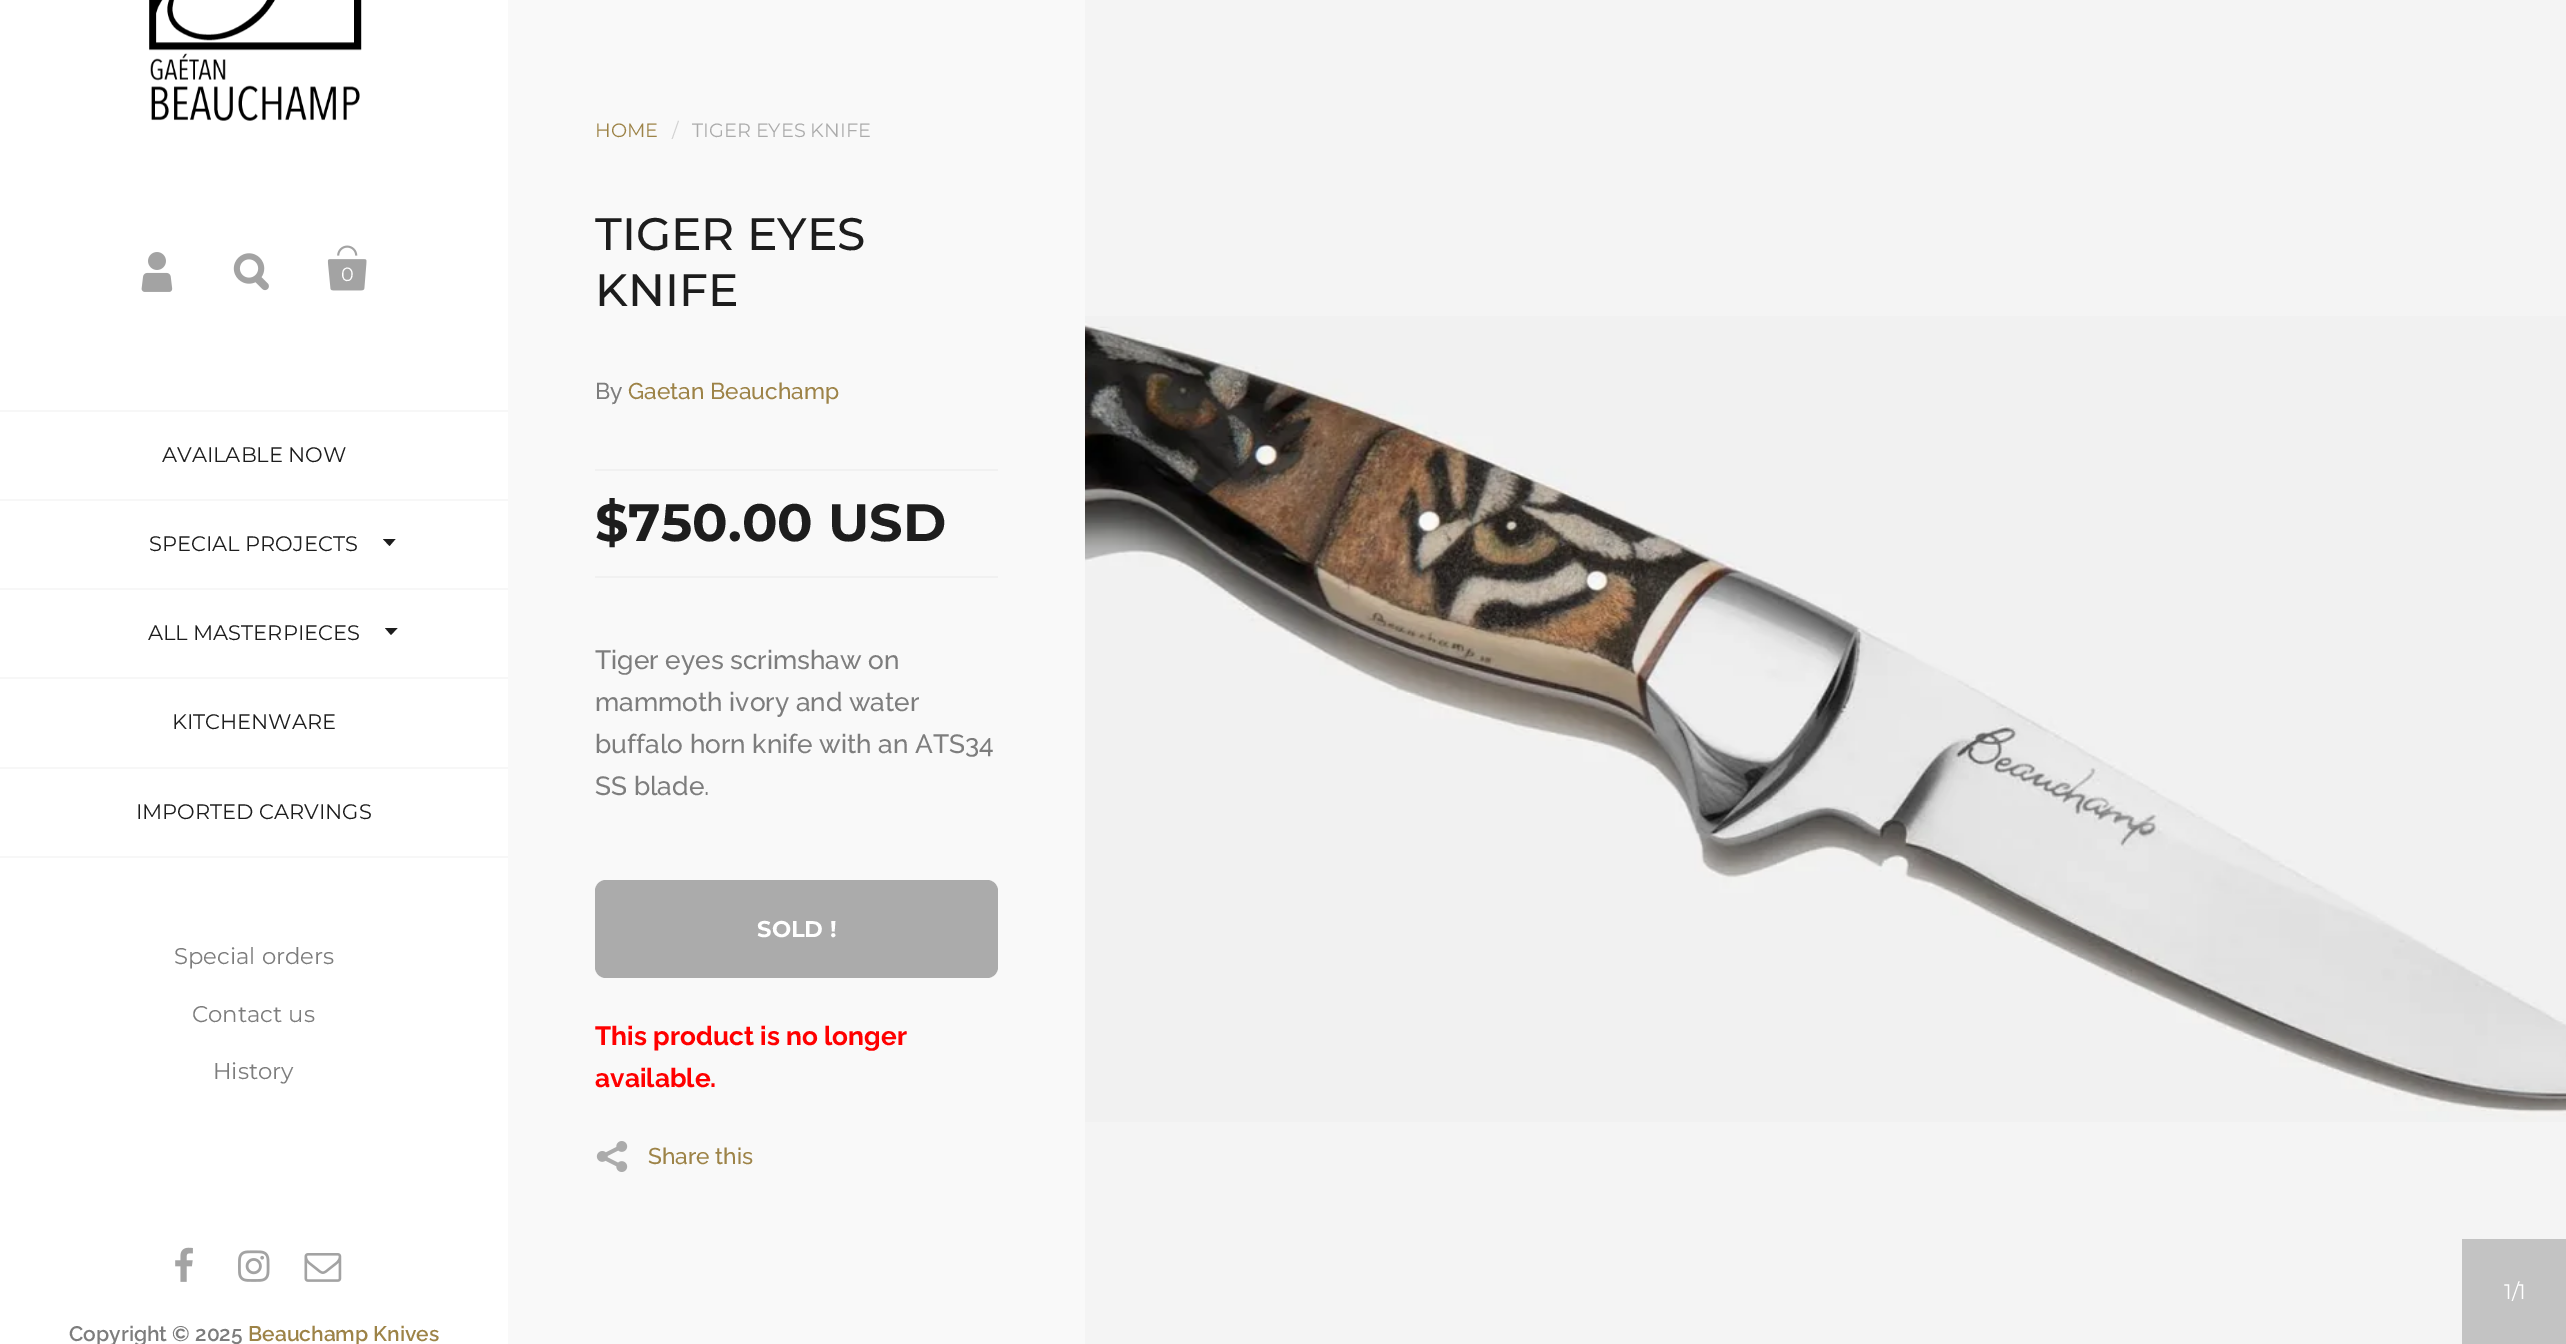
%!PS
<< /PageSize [2566 1344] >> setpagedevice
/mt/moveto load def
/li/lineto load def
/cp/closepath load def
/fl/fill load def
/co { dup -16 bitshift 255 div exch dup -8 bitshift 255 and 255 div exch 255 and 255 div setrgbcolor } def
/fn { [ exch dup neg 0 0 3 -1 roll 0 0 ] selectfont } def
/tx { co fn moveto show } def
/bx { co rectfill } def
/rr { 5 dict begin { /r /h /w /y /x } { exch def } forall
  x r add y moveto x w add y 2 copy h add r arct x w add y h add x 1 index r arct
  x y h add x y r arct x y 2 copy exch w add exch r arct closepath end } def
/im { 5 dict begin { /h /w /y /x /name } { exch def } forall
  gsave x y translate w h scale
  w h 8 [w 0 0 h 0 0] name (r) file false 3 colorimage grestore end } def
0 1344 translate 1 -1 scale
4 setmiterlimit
0 0 2566 1344 16#F9F9F9 bx
0 0 508 1344 16#FFFFFF bx
(media/1.raw) 149 0 213 121 im
(media/2.raw) 141 252 32 40 im
(media/3.raw) 233 253 36 38 im
(media/4.raw) 327 245 40 46 im
0 410 508 2 16#F7F7F7 bx
0 499 508 2 16#F7F7F7 bx
0 588 508 2 16#F7F7F7 bx
16#1D1D1D co
395.5 539 mt 389.5 546 li 383 539 li cp fl
0 677 508 2 16#F7F7F7 bx
16#1D1D1D co
397.5 628 mt 391 635 li 385 628 li cp fl
0 767 508 2 16#F7F7F7 bx
0 856 508 2 16#F7F7F7 bx
(media/5.raw) 175 1247 18 35 im
(media/6.raw) 238 1250 32 32 im
(media/7.raw) 304 1253 38 29 im
595 469 403 2 16#F1F1F1 bx
595 576 403 2 16#F1F1F1 bx
16#ABABAB co
595 880 403 98 11 rr fl
(media/8.raw) 596 1141 32 31 im
1085 0 1481 1344 16#F4F4F4 bx
(media/9.raw) 1085 316 1481 806 im
2462 1239 104 105 16#C3C3C3 bx
(0) 341 281 /Montserrat-Regular 19.25 16#FFFFFF tx
(AVAILABLE NOW) 162 462 /Montserrat-Regular 21 16#1D1D1D tx
(SPECIAL PROJECTS) 149 551 /Montserrat-Regular 21 16#1D1D1D tx
(ALL MASTERPIECES) 148 640 /Montserrat-Regular 21 16#1D1D1D tx
(KITCHENWARE) 172 729 /Montserrat-Regular 21 16#1D1D1D tx
(IMPORTED CARVINGS) 136 819 /Montserrat-Regular 21 16#1D1D1D tx
(Special orders) 174 964 /Montserrat-Regular 22.75 16#7D7D7D tx
(Contact us) 192 1022 /Montserrat-Regular 22.75 16#7D7D7D tx
(History) 213 1079 /Montserrat-Regular 22.75 16#7D7D7D tx
(Copyright © 2025) 69 1341 /Raleway-SemiBold 21 16#7D7D7D tx
(Beauchamp Knives) 248 1341 /Raleway-SemiBold 21 16#9D8347 tx
(HOME) 595 137 /Montserrat-Regular 19.25 16#9D8347 tx
(/) 672 137 /Montserrat-Regular 19.25 16#D2D2D2 tx
(TIGER EYES KNIFE) 692 137 /Montserrat-Regular 19.25 16#ABABAB tx
(TIGER EYES) 595 250 /Montserrat-Medium 45.5 16#1D1D1D tx
(KNIFE) 595 306 /Montserrat-Medium 45.5 16#1D1D1D tx
(By) 595 399 /Raleway-Medium 22.75 16#7D7D7D tx
(Gaetan Beauchamp) 628 399 /Raleway-Medium 22.75 16#9D8347 tx
($750.00 USD) 595 541 /Montserrat-Bold 52.5 16#1D1D1D tx
(Tiger eyes scrimshaw on) 595 669 /Raleway-Medium 26.25 16#7D7D7D tx
(mammoth ivory and water) 595 711 /Raleway-Medium 26.25 16#7D7D7D tx
(buffalo horn knife with an ATS34) 595 753 /Raleway-Medium 26.25 16#7D7D7D tx
(SS blade.) 595 795 /Raleway-Medium 26.25 16#7D7D7D tx
(SOLD !) 757 937 /Montserrat-Bold 22.75 16#FFFFFF tx
(This product is no longer) 595 1045 /Raleway-Bold 26.25 16#FF0000 tx
(available.) 595 1087 /Raleway-Bold 26.25 16#FF0000 tx
(Share this) 648 1164 /Raleway-Medium 22.75 16#9D8347 tx
(1) 2504 1299 /Montserrat-Regular 21 16#FFFFFF tx
2512 1299 mt -4 0 (/) ashow
(1) 2518 1299 /Montserrat-Regular 21 16#FFFFFF tx
showpage
